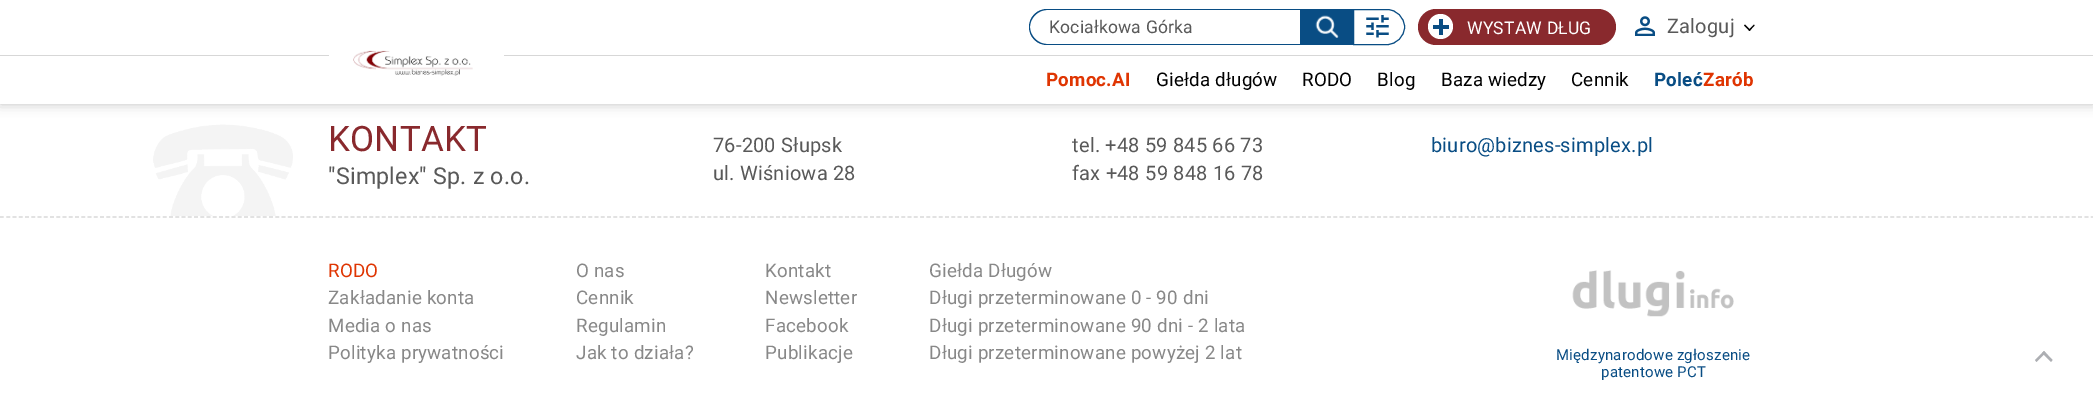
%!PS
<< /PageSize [2093 401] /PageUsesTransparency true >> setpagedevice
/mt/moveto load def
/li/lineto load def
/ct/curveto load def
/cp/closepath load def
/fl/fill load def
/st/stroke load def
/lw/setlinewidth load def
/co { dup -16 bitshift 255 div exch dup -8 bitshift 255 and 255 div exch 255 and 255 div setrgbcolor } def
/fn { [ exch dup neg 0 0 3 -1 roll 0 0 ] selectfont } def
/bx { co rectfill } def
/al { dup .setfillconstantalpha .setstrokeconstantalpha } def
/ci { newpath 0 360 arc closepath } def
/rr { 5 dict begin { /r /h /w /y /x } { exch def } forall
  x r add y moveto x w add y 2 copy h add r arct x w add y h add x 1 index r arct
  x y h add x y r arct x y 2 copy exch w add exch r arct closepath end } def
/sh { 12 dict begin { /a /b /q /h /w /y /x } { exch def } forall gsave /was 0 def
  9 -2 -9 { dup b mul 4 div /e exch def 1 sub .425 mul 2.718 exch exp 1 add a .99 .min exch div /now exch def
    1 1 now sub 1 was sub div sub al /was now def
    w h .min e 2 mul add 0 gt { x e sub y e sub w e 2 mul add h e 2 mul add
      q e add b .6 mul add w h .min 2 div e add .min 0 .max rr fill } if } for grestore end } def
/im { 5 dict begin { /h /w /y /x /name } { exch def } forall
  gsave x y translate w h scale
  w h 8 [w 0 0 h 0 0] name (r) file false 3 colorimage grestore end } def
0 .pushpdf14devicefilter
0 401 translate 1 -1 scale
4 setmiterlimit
0 0 2093 401 16#FFFFFF bx
16#C0C0C0 co
0 0 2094 104 0 6 1 sh
0 0 2093 104 16#FFFFFF bx
0 55 2093 1 16#D7D7D7 bx
16#094D84 co
1047 9 mt 1300 9 li 1300 45 li 1047 45 li 1037 45 1029 37 1029 27 ct 1029 17 1037 9 1047 9 ct cp 1047 10 mt 1300 10 li 1300 44 li 1047 44 li 1038 44 1030 36 1030 27 ct 1030 18 1038 10 1047 10 ct cp eofill
1300 9 53 36 16#094D84 bx
(media/1.raw) 1315 15 24 23 im
1353.5 9.5 mt 1387 9.5 li 1396.5 9.5 1404.5 17.5 1404.5 27 ct 1404.5 36.5 1396.5 44.5 1387 44.5 ct 1353.5 44.5 li cp st
(media/2.raw) 1366 15 23 23 im
16#89292D co
1418 9 198 36 18 rr fl
16#FFFFFF co
1440.5 26.5 12.5 ci fl
1433 25 16 4 16#094D84 bx
1439 19 4 16 16#094D84 bx
(media/3.raw) 1635 16 20 20 im
16#000000 co
1754 24.5 mt 1754.5 25.5 li 1749.5 31 li 1748.5 30 li cp fl
1745 24.5 mt 1750.5 30 li 1749.5 31 li 1744 25.5 li cp fl
329 55 175 1 16#FFFFFF bx
(media/4.raw) 353 50 120 26 im
(media/5.raw) 153 124 140 92 im
16#D7D7D7 co
1.2 lw
[3.75 2.51] 0 setdash
0 217 mt 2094 217 li st
(media/6.raw) 1572 270 162 47 im
16#ADAFB3 co
2036.5 362 mt 2035 360 li 2044 351 li 2045.5 353 li cp fl
2051 362 mt 2042 353 li 2044 351 li 2052.5 360 li cp fl
/Roboto-Regular 17.5 fn
16#595959 co
1049 33 mt .2 0 (Kociałkowa Górka) ashow
16#FFFFFF co
1467 34 mt .2 0 (WYSTAW DŁUG) ashow
/Roboto-Regular 20 fn
16#595959 co
1667 33 mt .2 0 (Zaloguj) ashow
/Roboto-Bold 18.75 fn
16#DF3502 co
1046 86 mt .2 0 (Pomoc.AI) ashow
/Roboto-Regular 18.75 fn
16#000000 co
1156 86 mt .2 0 (Giełda długów) ashow
1302 86 mt .2 0 (RODO) ashow
1377 86 mt .2 0 (Blog) ashow
1441 86 mt .2 0 (Baza wiedzy) ashow
1571 86 mt .2 0 (Cennik) ashow
/Roboto-Bold 18.75 fn
16#094D84 co
1654 86 mt .2 0 (Poleć) ashow
16#DF3502 co
1703 86 mt .2 0 (Zarób) ashow
/Roboto-Regular 35 fn
16#89292D co
328 151 mt .2 0 (KONTAKT) ashow
/Roboto-Regular 23.25 fn
16#595959 co
328 184 mt .2 0 ("Simplex" Sp. z o.o.) ashow
/Roboto-Regular 20 fn
713 152 mt .2 0 (76-200 Słupsk) ashow
713 180 mt .2 0 (ul. Wiśniowa 28) ashow
1072 152 mt .2 0 (tel. +48 59 845 66 73) ashow
1072 180 mt .2 0 (fax +48 59 848 16 78) ashow
16#094D84 co
1431 152 mt .2 0 (biuro@biznes-simplex.pl) ashow
/Roboto-Regular 18.75 fn
16#DF3502 co
328 277 mt .2 0 (RODO) ashow
16#888888 co
328 304 mt .2 0 (Zakładanie konta) ashow
328 332 mt .2 0 (Media o nas) ashow
328 359 mt .2 0 (Polityka prywatności) ashow
576 277 mt .2 0 (O nas) ashow
576 304 mt .2 0 (Cennik) ashow
576 332 mt .2 0 (Regulamin) ashow
576 359 mt .2 0 (Jak to działa?) ashow
765 277 mt .2 0 (Kontakt) ashow
765 304 mt .2 0 (Newsletter) ashow
765 332 mt .2 0 (Facebook) ashow
765 359 mt .2 0 (Publikacje) ashow
929 277 mt .2 0 (Giełda Długów) ashow
929 304 mt .2 0 (Długi przeterminowane 0 - 90 dni) ashow
929 332 mt .2 0 (Długi przeterminowane 90 dni - 2 lata) ashow
929 359 mt .2 0 (Długi przeterminowane powyżej 2 lat) ashow
/Roboto-Regular 15 fn
16#094D84 co
1556 360 mt .2 0 (Międzynarodowe zgłoszenie) ashow
1601 377 mt .2 0 (patentowe PCT) ashow
.poppdf14devicefilter showpage
